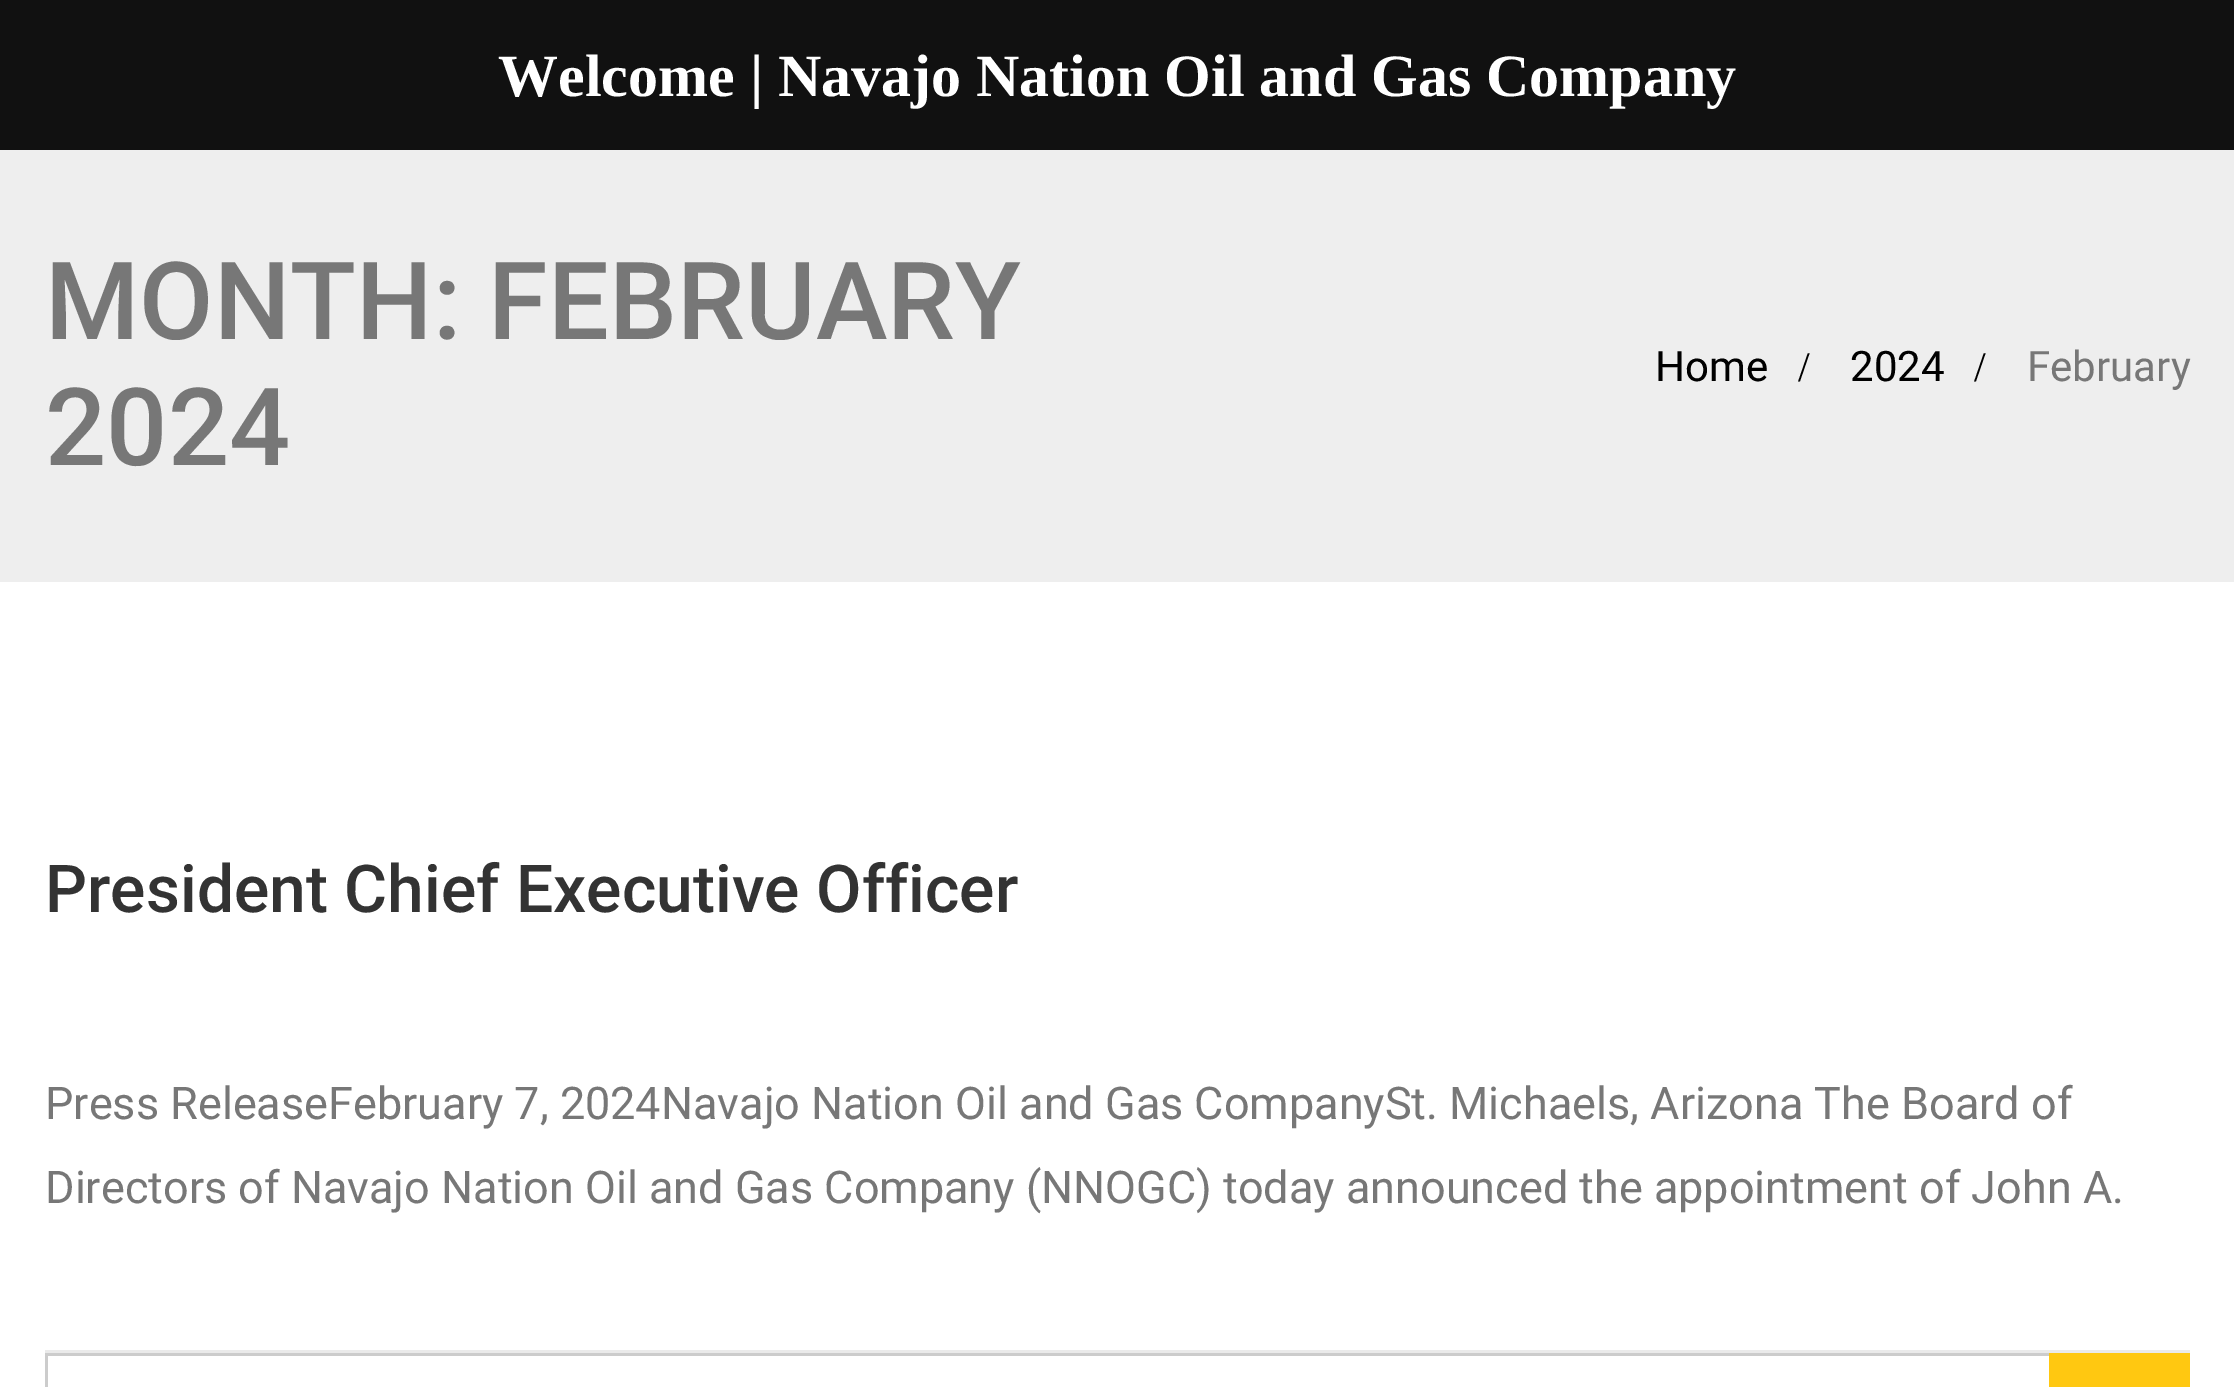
%!PS
<< /PageSize [2234 1387] >> setpagedevice
/co { dup -16 bitshift 255 div exch dup -8 bitshift 255 and 255 div exch 255 and 255 div setrgbcolor } def
/fn { [ exch dup neg 0 0 3 -1 roll 0 0 ] selectfont } def
/tx { co fn moveto show } def
/bx { co rectfill } def
0 1387 translate 1 -1 scale
4 setmiterlimit
0 0 2234 1387 16#FFFFFF bx
0 0 2234 150 16#111111 bx
0 150 2234 432 16#EEEEEE bx
45 1350 2145 3 16#EAEAEA bx
45 1353 2004 3 16#CCCCCC bx
45 1353 3 34 16#CCCCCC bx
2049 1353 141 34 16#FFC811 bx
(Welcome | Navajo Nation Oil and Gas Company) 498 96 /LiberationSerif-Bold 60 16#FFFFFF tx
(MONTH: FEBRUARY) 45 339 /Roboto-Medium 108 16#777777 tx
(2024) 45 465 /Roboto-Medium 108 16#777777 tx
(Home) 1655 381 /Roboto-Regular 42 16#000000 tx
(/) 1798 381 /LiberationSerif-Regular 42 16#000000 tx
(2024) 1850 381 /Roboto-Regular 42 16#000000 tx
(/) 1974 381 /LiberationSerif-Regular 42 16#000000 tx
(February) 2027 381 /Roboto-Regular 42 16#777777 tx
(President Chief Executive Officer) 45 912 /Roboto-Medium 66 16#333333 tx
(Press ReleaseFebruary 7, 2024Navajo Nation Oil and Gas CompanySt. Michaels, Arizona The Board of) 45 1119 /Roboto-Regular 45 16#777777 tx
(Directors of Navajo Nation Oil and Gas Company \(NNOGC\) today announced the appointment of John A.) 45 1203 /Roboto-Regular 45 16#777777 tx
showpage
